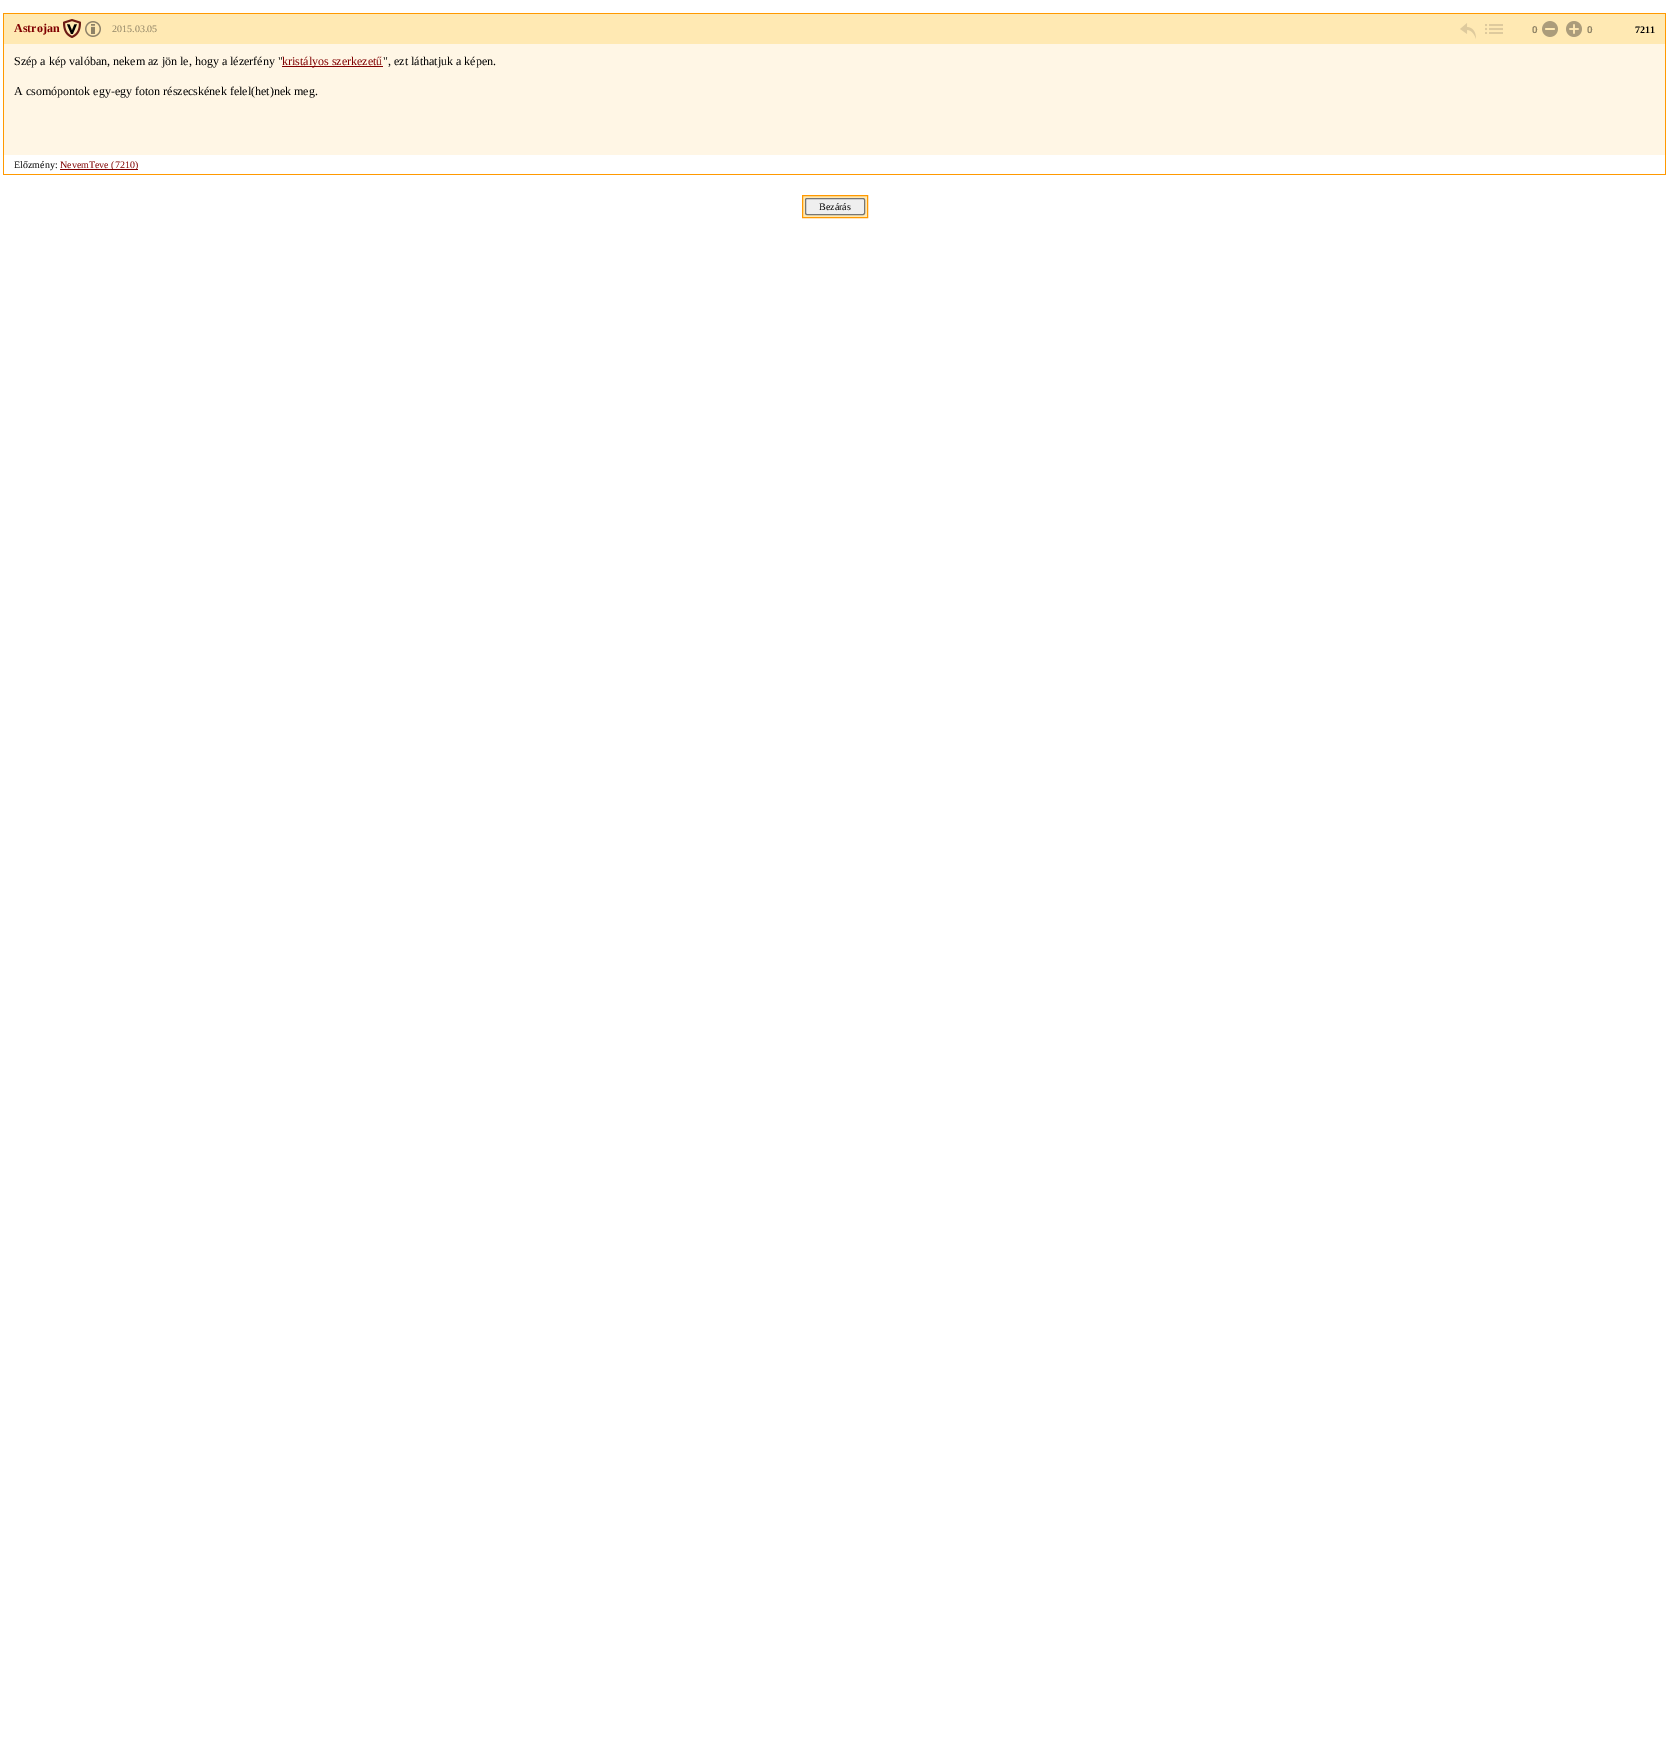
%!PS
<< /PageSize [1669 1752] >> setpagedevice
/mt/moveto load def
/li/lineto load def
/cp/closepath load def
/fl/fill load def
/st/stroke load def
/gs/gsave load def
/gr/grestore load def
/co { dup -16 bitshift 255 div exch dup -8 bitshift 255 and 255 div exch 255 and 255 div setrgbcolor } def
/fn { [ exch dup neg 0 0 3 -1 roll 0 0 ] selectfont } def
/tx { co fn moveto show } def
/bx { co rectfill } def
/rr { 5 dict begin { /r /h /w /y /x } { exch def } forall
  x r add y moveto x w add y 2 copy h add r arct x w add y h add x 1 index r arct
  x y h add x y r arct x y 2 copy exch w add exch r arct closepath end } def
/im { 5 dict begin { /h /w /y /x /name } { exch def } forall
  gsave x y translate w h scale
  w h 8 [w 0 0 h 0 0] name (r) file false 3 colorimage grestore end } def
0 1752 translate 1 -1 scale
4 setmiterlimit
0 0 1669 1752 16#FFFFFF bx
3 13 1663 1 16#FF9900 bx
1665 13 1 162 16#FF9900 bx
3 174 1663 1 16#FF9900 bx
3 13 1 162 16#FF9900 bx
4 14 1661 30 16#FFE9B3 bx
(media/1.raw) 63 19 18 19 im
(media/2.raw) 85 21 16 16 im
(media/3.raw) 1460 23 16 16 im
(media/4.raw) 1485 24 18 10 im
(media/5.raw) 1542 21 16 16 im
(media/6.raw) 1566 21 16 16 im
4 44 1661 111 16#FFF6E5 bx
282 66 101 1 16#800000 bx
60 169 78 1 16#800000 bx
16#FFE9B3 co
802.5 195.5 mt 867.5 195.5 li 867.5 217.5 li 802.5 217.5 li cp gs fl gr
16#FF9900 co
st
16#EFEFEF co
805.5 198.5 59 16 1.5 rr gs fl gr
16#767676 co
st
(Astrojan) 14 32 /LiberationSerif-Bold 12 16#800000 tx
(2015.03.05) 112 32 /LiberationSerif-Regular 10 16#8F8365 tx
(0) 1532 33 /LiberationSans-Bold 10 16#8F8365 tx
(0) 1587 33 /LiberationSans-Bold 10 16#8F8365 tx
(7211) 1635 33 /LiberationSerif-Bold 10 16#000000 tx
(Szép a kép valóban, nekem az jön le, hogy a lézerfény ") 14 65 /LiberationSerif-Regular 12 16#000000 tx
(kristályos szerkezetű) 282 65 /LiberationSerif-Regular 12 16#800000 tx
(", ezt láthatjuk a képen.) 383 65 /LiberationSerif-Regular 12 16#000000 tx
(A csomópontok egy-egy foton részecskének felel\(het\)nek meg.) 14 95 /LiberationSerif-Regular 12 16#000000 tx
(Előzmény:) 14 168 /LiberationSerif-Regular 10 16#000000 tx
(NevemTeve \(7210\)) 60 168 /LiberationSerif-Regular 10 16#800000 tx
(Bezárás) 819 210 /LiberationSerif-Regular 10 16#000000 tx
showpage
